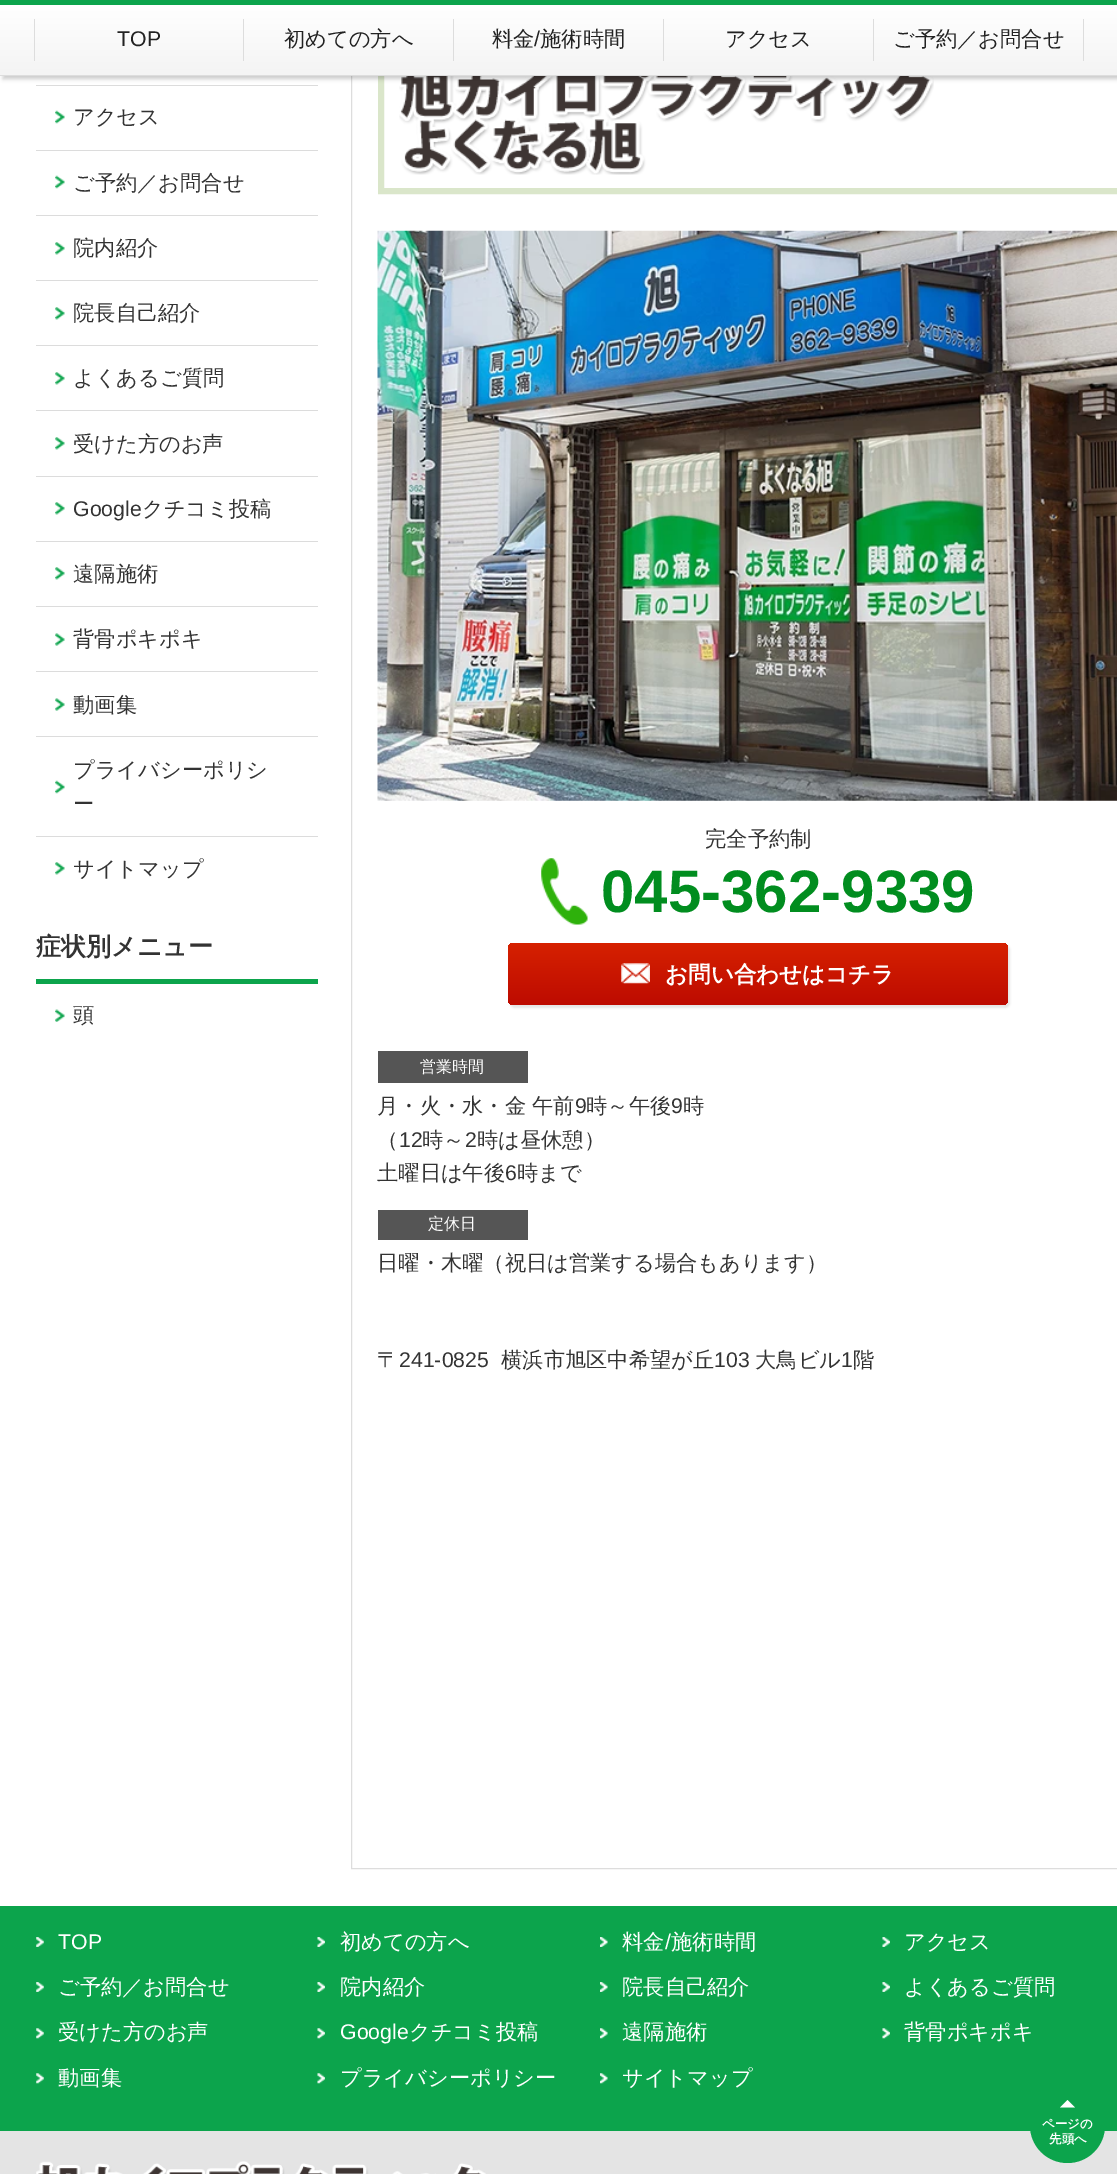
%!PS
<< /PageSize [1117 2174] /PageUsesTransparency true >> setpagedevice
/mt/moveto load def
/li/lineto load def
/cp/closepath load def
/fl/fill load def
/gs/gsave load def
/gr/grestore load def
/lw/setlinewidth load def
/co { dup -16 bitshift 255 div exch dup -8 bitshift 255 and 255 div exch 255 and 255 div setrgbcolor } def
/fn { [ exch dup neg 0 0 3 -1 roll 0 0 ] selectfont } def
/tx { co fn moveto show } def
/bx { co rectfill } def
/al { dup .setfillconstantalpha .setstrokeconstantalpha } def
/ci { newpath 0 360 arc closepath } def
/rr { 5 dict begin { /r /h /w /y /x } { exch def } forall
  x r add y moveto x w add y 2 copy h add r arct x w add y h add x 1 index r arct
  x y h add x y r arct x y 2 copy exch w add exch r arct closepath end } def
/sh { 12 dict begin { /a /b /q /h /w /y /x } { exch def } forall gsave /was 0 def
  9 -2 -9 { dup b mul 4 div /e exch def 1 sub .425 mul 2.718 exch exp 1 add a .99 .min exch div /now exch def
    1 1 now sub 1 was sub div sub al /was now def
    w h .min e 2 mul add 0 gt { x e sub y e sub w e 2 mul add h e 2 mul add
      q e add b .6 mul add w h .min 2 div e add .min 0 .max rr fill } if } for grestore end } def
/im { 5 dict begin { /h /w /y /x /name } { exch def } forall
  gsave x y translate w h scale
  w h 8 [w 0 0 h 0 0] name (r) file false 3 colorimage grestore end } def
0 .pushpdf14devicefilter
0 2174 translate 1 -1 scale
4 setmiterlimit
0 0 1117 2174 16#FFFFFF bx
36 85 282 1 16#DCDCDC bx
16#DDDDDD co
351.5 -.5 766 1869 rectstroke
16#DAE6CA co
6 lw
381 47 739 144 rectstroke
(media/5.raw) 399 76 535 99 im
16#000000 co
3 3 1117 76 0 2 .2 sh
gs 0 5 mt 1117 5 li 1117 75 li 0 75 li cp clip newpath
<< /ShadingType 2 /ColorSpace /DeviceRGB /Coords [559 5 559 75] /Extend [true true] /Function << /FunctionType 2 /Domain [0 1] /C0 [1 1 1] /C1 [.957 .957 .957] /N 1 >> >> shfill gr
0 0 1117 5 16#0CA44C bx
0 75 1117 1 16#DDDDDD bx
34 19 1 42 16#DDDDDD bx
243 19 1 42 16#DDDDDD bx
453 19 1 42 16#DDDDDD bx
663 19 1 42 16#DDDDDD bx
873 19 1 42 16#DDDDDD bx
1083 19 1 42 16#DDDDDD bx
(media/1.raw) 55 110 10 14 im
36 150 282 1 16#DCDCDC bx
(media/1.raw) 55 175 10 14 im
36 215 282 1 16#DCDCDC bx
(media/2.raw) 55 242 10 13 im
36 280 282 1 16#DCDCDC bx
(media/2.raw) 55 307 10 13 im
36 345 282 1 16#DCDCDC bx
(media/2.raw) 55 372 10 13 im
36 410 282 1 16#DCDCDC bx
(media/2.raw) 55 437 10 13 im
36 476 282 1 16#DCDCDC bx
(media/2.raw) 55 502 10 13 im
36 541 282 1 16#DCDCDC bx
(media/2.raw) 55 567 10 13 im
36 606 282 1 16#DCDCDC bx
(media/3.raw) 55 633 10 13 im
36 671 282 1 16#DCDCDC bx
(media/3.raw) 55 698 10 13 im
36 736 282 1 16#DCDCDC bx
(media/1.raw) 55 780 10 14 im
36 836 282 1 16#DCDCDC bx
(media/2.raw) 55 862 10 13 im
36 979 282 5 16#0CA44C bx
(media/4.raw) 55 1009 10 13 im
(media/6.raw) 377 230 740 571 im
(media/7.raw) 541 858 47 67 im
16#000000 co
510 945 500 63 5 1 .1 sh
gs 508 943 500 62 5 rr clip newpath
<< /ShadingType 2 /ColorSpace /DeviceRGB /Coords [758 943 758 1005] /Extend [true true] /Function << /FunctionType 2 /Domain [0 1] /C0 [.839 .129 0] /C1 [.741 .043 0] /N 1 >> >> shfill gr
(media/8.raw) 621 963 29 21 im
378 1051 150 32 16#555555 bx
378 1210 150 30 16#555555 bx
0 1906 1117 225 16#0CA44C bx
(media/9.raw) 36 1937 8 10 im
(media/10.raw) 317 1937 8 10 im
(media/11.raw) 600 1937 8 10 im
(media/10.raw) 882 1937 8 10 im
(media/9.raw) 36 1982 8 10 im
(media/10.raw) 317 1982 8 10 im
(media/11.raw) 600 1982 8 10 im
(media/10.raw) 882 1982 8 10 im
(media/12.raw) 36 2028 8 11 im
(media/13.raw) 317 2028 8 11 im
(media/14.raw) 600 2028 8 11 im
(media/13.raw) 882 2028 8 11 im
(media/12.raw) 36 2073 8 11 im
(media/13.raw) 317 2073 8 11 im
(media/14.raw) 600 2073 8 11 im
0 2131 1117 43 16#E4E4E4 bx
16#0CA44C co
1067.5 2125.5 37.5 ci fl
16#FFFFFF co
1075 2107.5 mt 1060 2107.5 li 1067.5 2100 li cp fl
(media/15.raw) 36 2161 450 13 im
(TOP) 117 46 /LiberationSans-Regular 21.25 16#222222 tx
(初めての方へ) 284 46 /WenQuanYiZenHei-Medium 21.25 16#222222 tx
(料金) 492 46 /WenQuanYiZenHei-Medium 21.25 16#222222 tx
(/) 534 46 /LiberationSans-Regular 21.25 16#222222 tx
(施術時間) 540 46 /WenQuanYiZenHei-Medium 21.25 16#222222 tx
(アクセス) 725 46 /WenQuanYiZenHei-Medium 21.25 16#222222 tx
(ご予約／お問合せ) 893 46 /WenQuanYiZenHei-Medium 21.25 16#222222 tx
(アクセス) 73 124 /WenQuanYiZenHei-Medium 21.25 16#333333 tx
(ご予約／お問合せ) 73 190 /WenQuanYiZenHei-Medium 21.25 16#333333 tx
(院内紹介) 73 255 /WenQuanYiZenHei-Medium 21.25 16#333333 tx
(院長自己紹介) 73 320 /WenQuanYiZenHei-Medium 21.25 16#333333 tx
(よくあるご質問) 73 385 /WenQuanYiZenHei-Medium 21.25 16#333333 tx
(受けた方のお声) 73 451 /WenQuanYiZenHei-Medium 21.25 16#333333 tx
(Google) 73 516 /LiberationSans-Regular 21.25 16#333333 tx
(クチコミ投稿) 142 516 /WenQuanYiZenHei-Medium 21.25 16#333333 tx
(遠隔施術) 73 581 /WenQuanYiZenHei-Medium 21.25 16#333333 tx
(背骨ポキポキ) 73 646 /WenQuanYiZenHei-Medium 21.25 16#333333 tx
(動画集) 73 712 /WenQuanYiZenHei-Medium 21.25 16#333333 tx
(プライバシーポリシ) 73 777 /WenQuanYiZenHei-Medium 21.25 16#333333 tx
(ー) 73 811 /WenQuanYiZenHei-Medium 21.25 16#333333 tx
(サイトマップ) 73 876 /WenQuanYiZenHei-Medium 21.25 16#333333 tx
(症状別メニュー) 36 955 /WenQuanYiZenHei-Bold 25 16#333333 tx
(頭) 73 1022 /WenQuanYiZenHei-Medium 21.25 16#333333 tx
(完全予約制) 705 846 /WenQuanYiZenHei-Medium 21.25 16#333333 tx
(045-362-9339) 601 912 /LiberationSans-Bold 60 16#018D1F tx
(お問い合わせはコチラ) 665 982 /WenQuanYiZenHei-Bold 22.5 16#FFFFFF tx
(営業時間) 420 1072 /WenQuanYiZenHei-Medium 16 16#FFFFFF tx
(月・火・水・金 午前) 377 1113 /WenQuanYiZenHei-Medium 21.25 16#333333 tx
(9) 575 1113 /LiberationSans-Regular 21.25 16#333333 tx
(時～午後) 586 1113 /WenQuanYiZenHei-Medium 21.25 16#333333 tx
(9) 671 1113 /LiberationSans-Regular 21.25 16#333333 tx
(時) 683 1113 /WenQuanYiZenHei-Medium 21.25 16#333333 tx
(（) 377 1147 /WenQuanYiZenHei-Medium 21.25 16#333333 tx
(12) 399 1147 /LiberationSans-Regular 21.25 16#333333 tx
(時～) 422 1147 /WenQuanYiZenHei-Medium 21.25 16#333333 tx
(2) 465 1147 /LiberationSans-Regular 21.25 16#333333 tx
(時は昼休憩）) 477 1147 /WenQuanYiZenHei-Medium 21.25 16#333333 tx
(土曜日は午後) 377 1180 /WenQuanYiZenHei-Medium 21.25 16#333333 tx
(6) 505 1180 /LiberationSans-Regular 21.25 16#333333 tx
(時まで) 517 1180 /WenQuanYiZenHei-Medium 21.25 16#333333 tx
(定休日) 428 1229 /WenQuanYiZenHei-Medium 16 16#FFFFFF tx
(日曜・木曜（祝日は営業する場合もあります）) 377 1270 /WenQuanYiZenHei-Medium 21.25 16#333333 tx
(〒) 377 1367 /WenQuanYiZenHei-Medium 21.25 16#333333 tx
(241-0825) 399 1367 /LiberationSans-Regular 21.25 16#333333 tx
(横浜市旭区中希望が丘) 501 1367 /WenQuanYiZenHei-Medium 21.25 16#333333 tx
(103) 714 1367 /LiberationSans-Regular 21.25 16#333333 tx
(大鳥ビル) 755 1367 /WenQuanYiZenHei-Medium 21.25 16#333333 tx
(1) 841 1367 /LiberationSans-Regular 21.25 16#333333 tx
(階) 853 1367 /WenQuanYiZenHei-Medium 21.25 16#333333 tx
(TOP) 58 1949 /LiberationSans-Regular 21.25 16#FFFFFF tx
(初めての方へ) 340 1949 /WenQuanYiZenHei-Medium 21.25 16#FFFFFF tx
(料金) 622 1949 /WenQuanYiZenHei-Medium 21.25 16#FFFFFF tx
(/) 665 1949 /LiberationSans-Regular 21.25 16#FFFFFF tx
(施術時間) 671 1949 /WenQuanYiZenHei-Medium 21.25 16#FFFFFF tx
(アクセス) 904 1949 /WenQuanYiZenHei-Medium 21.25 16#FFFFFF tx
(ご予約／お問合せ) 58 1994 /WenQuanYiZenHei-Medium 21.25 16#FFFFFF tx
(院内紹介) 340 1994 /WenQuanYiZenHei-Medium 21.25 16#FFFFFF tx
(院長自己紹介) 622 1994 /WenQuanYiZenHei-Medium 21.25 16#FFFFFF tx
(よくあるご質問) 904 1994 /WenQuanYiZenHei-Medium 21.25 16#FFFFFF tx
(受けた方のお声) 58 2039 /WenQuanYiZenHei-Medium 21.25 16#FFFFFF tx
(Google) 340 2039 /LiberationSans-Regular 21.25 16#FFFFFF tx
(クチコミ投稿) 409 2039 /WenQuanYiZenHei-Medium 21.25 16#FFFFFF tx
(遠隔施術) 622 2039 /WenQuanYiZenHei-Medium 21.25 16#FFFFFF tx
(背骨ポキポキ) 904 2039 /WenQuanYiZenHei-Medium 21.25 16#FFFFFF tx
(動画集) 58 2085 /WenQuanYiZenHei-Medium 21.25 16#FFFFFF tx
(プライバシーポリシー) 340 2085 /WenQuanYiZenHei-Medium 21.25 16#FFFFFF tx
(サイトマップ) 622 2085 /WenQuanYiZenHei-Medium 21.25 16#FFFFFF tx
(ページの) 1042 2128 /WenQuanYiZenHei-Bold 12.5 16#FFFFFF tx
(先頭へ) 1049 2143 /WenQuanYiZenHei-Bold 12.5 16#FFFFFF tx
.poppdf14devicefilter showpage
